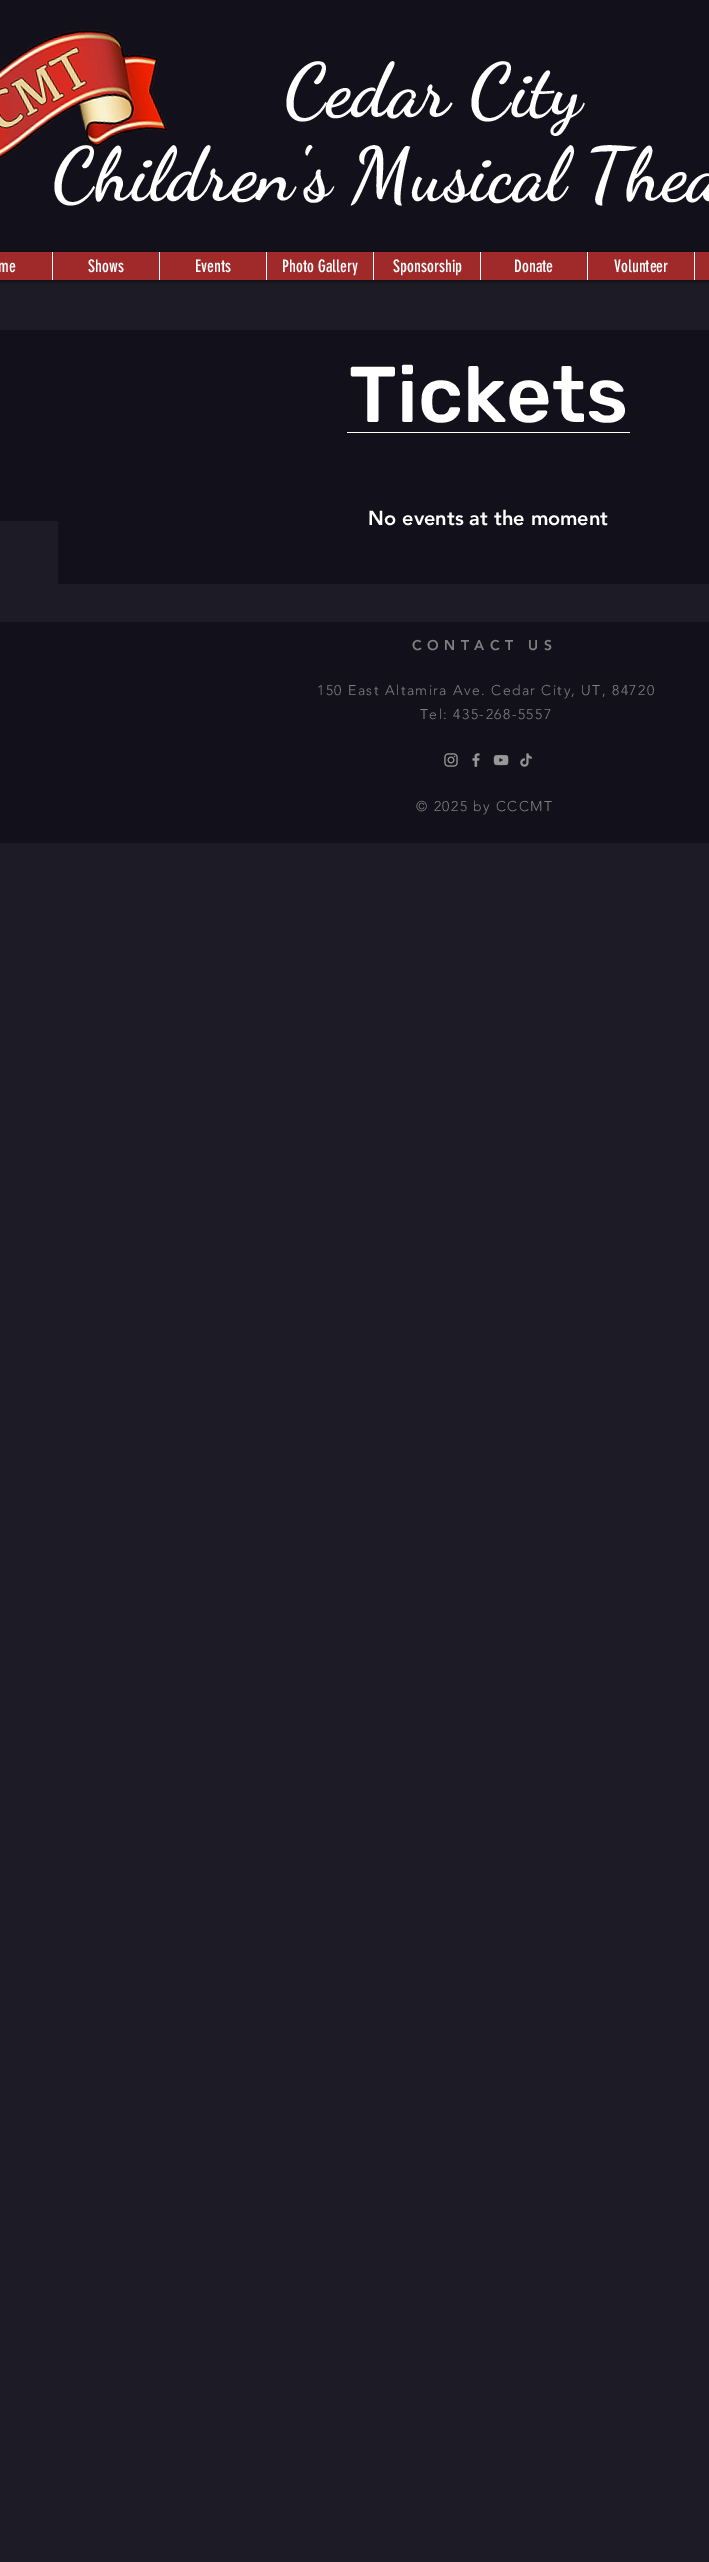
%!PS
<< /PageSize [709 2562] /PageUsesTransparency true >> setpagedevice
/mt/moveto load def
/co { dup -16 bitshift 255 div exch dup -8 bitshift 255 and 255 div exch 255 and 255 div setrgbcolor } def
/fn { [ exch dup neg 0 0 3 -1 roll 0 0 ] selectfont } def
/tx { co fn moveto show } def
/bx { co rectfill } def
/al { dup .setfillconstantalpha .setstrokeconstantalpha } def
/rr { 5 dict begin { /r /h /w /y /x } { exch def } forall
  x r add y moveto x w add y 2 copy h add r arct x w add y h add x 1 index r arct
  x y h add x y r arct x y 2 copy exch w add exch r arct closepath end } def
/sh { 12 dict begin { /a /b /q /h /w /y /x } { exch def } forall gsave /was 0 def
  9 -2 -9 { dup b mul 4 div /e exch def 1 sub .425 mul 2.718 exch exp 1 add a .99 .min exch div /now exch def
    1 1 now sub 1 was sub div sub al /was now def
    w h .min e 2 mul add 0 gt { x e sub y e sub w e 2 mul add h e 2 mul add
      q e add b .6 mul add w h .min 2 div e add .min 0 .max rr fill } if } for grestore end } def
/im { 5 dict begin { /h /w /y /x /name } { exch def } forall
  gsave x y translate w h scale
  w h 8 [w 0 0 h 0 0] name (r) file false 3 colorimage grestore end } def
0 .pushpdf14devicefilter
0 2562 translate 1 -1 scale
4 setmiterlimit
0 0 709 2562 16#1D1B26 bx
0 0 709 252 16#12101B bx
(media/1.raw) 0 29 169 130 im
16#000000 co
-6 253 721 28 0 2 .6 sh
0 252 709 28 16#A02929 bx
52 252 1 28 16#FFFFFF bx
159 252 1 28 16#FFFFFF bx
266 252 1 28 16#FFFFFF bx
373 252 1 28 16#FFFFFF bx
480 252 1 28 16#FFFFFF bx
587 252 1 28 16#FFFFFF bx
694 252 1 28 16#FFFFFF bx
0 330 709 191 16#12101B bx
347 432 283 1 16#FFFFFF bx
58 521 651 63 16#12101B bx
0 622 709 221 16#12101B bx
(media/2.raw) 444 753 14 14 im
(media/3.raw) 472 753 8 14 im
(media/4.raw) 493 754 16 12 im
(media/5.raw) 520 753 12 14 im
(Cedar City) 284 115 /DancingScript-Bold 75 16#FFFFFF tx
(Children's Musical Thea) 52 199 /DancingScript-Bold 75 16#FFFFFF tx
(me) -2 272 /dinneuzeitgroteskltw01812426-Regular 17 16#FFFFFF tx
(Shows) 88 272 /dinneuzeitgroteskltw01812426-Regular 17 16#FFFFFF tx
(Events) 195 272 /dinneuzeitgroteskltw01812426-Regular 17 16#FFFFFF tx
(Photo Gallery) 282 272 /dinneuzeitgroteskltw01812426-Regular 17 16#FFFFFF tx
(Sponsorship) 393 272 /dinneuzeitgroteskltw01812426-Regular 17 16#FFFFFF tx
(Donate) 514 272 /dinneuzeitgroteskltw01812426-Regular 17 16#FFFFFF tx
(Volunteer) 614 272 /dinneuzeitgroteskltw01812426-Regular 17 16#FFFFFF tx
(Tickets) 349 422 /Rubik-Medium 79 16#FFFFFF tx
(No events at the moment) 368 525 /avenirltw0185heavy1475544-Black 20 16#FFFFFF tx
/avenirltw0185heavy1475544-Black 14 fn
16#808080 co
412 650 mt 5.5 0 (CONTACT US) ashow
/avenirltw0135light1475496-Light 14 fn
317 695 mt 1.4 0 (150 East Altamira Ave. Cedar City, UT, 84720) ashow
420 719 mt 1.4 0 (Tel: 435-268-5557) ashow
416 811 mt 1.4 0 (© 2025 by CCCMT) ashow
.poppdf14devicefilter showpage
